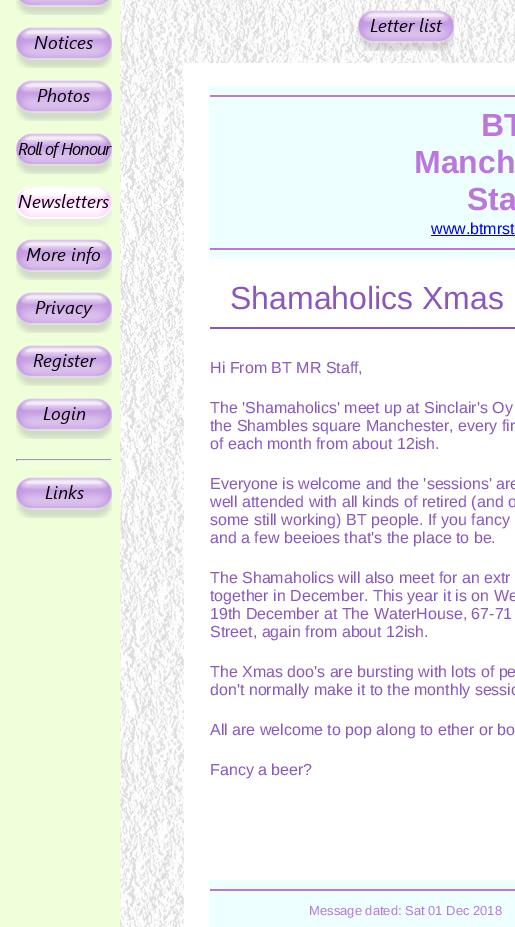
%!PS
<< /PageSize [515 927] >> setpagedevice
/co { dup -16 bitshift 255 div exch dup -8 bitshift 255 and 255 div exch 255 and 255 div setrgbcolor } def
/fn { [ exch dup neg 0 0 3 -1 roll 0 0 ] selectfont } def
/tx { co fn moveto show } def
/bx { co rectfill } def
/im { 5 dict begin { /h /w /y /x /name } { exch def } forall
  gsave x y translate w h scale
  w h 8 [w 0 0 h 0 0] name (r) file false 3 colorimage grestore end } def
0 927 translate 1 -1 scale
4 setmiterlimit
0 0 515 927 16#EEFFDA bx
(media/1.raw) 16 0 96 15 im
(media/2.raw) 16 27 96 41 im
(media/3.raw) 16 80 96 41 im
(media/4.raw) 16 133 96 41 im
(media/5.raw) 16 186 96 41 im
(media/6.raw) 16 239 96 41 im
(media/7.raw) 16 292 96 41 im
(media/8.raw) 16 345 96 41 im
(media/9.raw) 16 398 96 41 im
16 459 96 1 16#9F9F9F bx
111 459 1 2 16#EEEEEE bx
16 460 96 1 16#EEEEEE bx
16 459 1 2 16#9F9F9F bx
(media/10.raw) 16 477 96 41 im
(media/11.raw) 120 0 395 927 im
(media/12.raw) 358 10 96 41 im
184 63 331 864 16#FFFFFF bx
209 86 306 20 16#EEFFFF bx
210 95 305 2 16#BB77DD bx
209 106 195 133 16#EEFFFF bx
404 106 111 133 16#EEFFFF bx
431 235 84 1 16#0000EE bx
209 239 306 20 16#EEFFFF bx
210 248 305 2 16#BB77DD bx
210 327 305 2 16#8B57BD bx
209 880 306 47 16#EEFFFF bx
210 889 305 2 16#BB77DD bx
(BT) 481 136 /LiberationSans-Bold 32 16#BB77DD tx
(Manch) 414 173 /LiberationSans-Bold 32 16#BB77DD tx
(Sta) 467 210 /LiberationSans-Bold 32 16#BB77DD tx
(www.btmrst) 431 234 /LiberationSans-Regular 16 16#0000EE tx
(Shamaholics Xmas) 230 309 /LiberationSans-Regular 32 16#8B57BD tx
(Hi From BT MR Staff,) 210 373 /LiberationSans-Regular 16 16#8B57BD tx
(The 'Shamaholics' meet up at Sinclair's Oy) 210 413 /LiberationSans-Regular 16 16#8B57BD tx
(the Shambles square Manchester, every fir) 210 431 /LiberationSans-Regular 16 16#8B57BD tx
(of each month from about 12ish.) 210 449 /LiberationSans-Regular 16 16#8B57BD tx
(Everyone is welcome and the 'sessions' are) 210 489 /LiberationSans-Regular 16 16#8B57BD tx
(well attended with all kinds of retired \(and o) 210 507 /LiberationSans-Regular 16 16#8B57BD tx
(some still working\) BT people. If you fancy) 210 525 /LiberationSans-Regular 16 16#8B57BD tx
(and a few beeioes that's the place to be.) 210 543 /LiberationSans-Regular 16 16#8B57BD tx
(The Shamaholics will also meet for an extr) 210 583 /LiberationSans-Regular 16 16#8B57BD tx
(together in December. This year it is on We) 210 601 /LiberationSans-Regular 16 16#8B57BD tx
(19th December at The WaterHouse, 67-71) 210 619 /LiberationSans-Regular 16 16#8B57BD tx
(Street, again from about 12ish.) 210 637 /LiberationSans-Regular 16 16#8B57BD tx
(The Xmas doo's are bursting with lots of pe) 210 677 /LiberationSans-Regular 16 16#8B57BD tx
(don't normally make it to the monthly sessio) 210 695 /LiberationSans-Regular 16 16#8B57BD tx
(All are welcome to pop along to ether or bo) 210 735 /LiberationSans-Regular 16 16#8B57BD tx
(Fancy a beer?) 210 775 /LiberationSans-Regular 16 16#8B57BD tx
(Message dated: Sat 01 Dec 2018) 309 915 /LiberationSans-Regular 13 16#BB77DD tx
showpage
